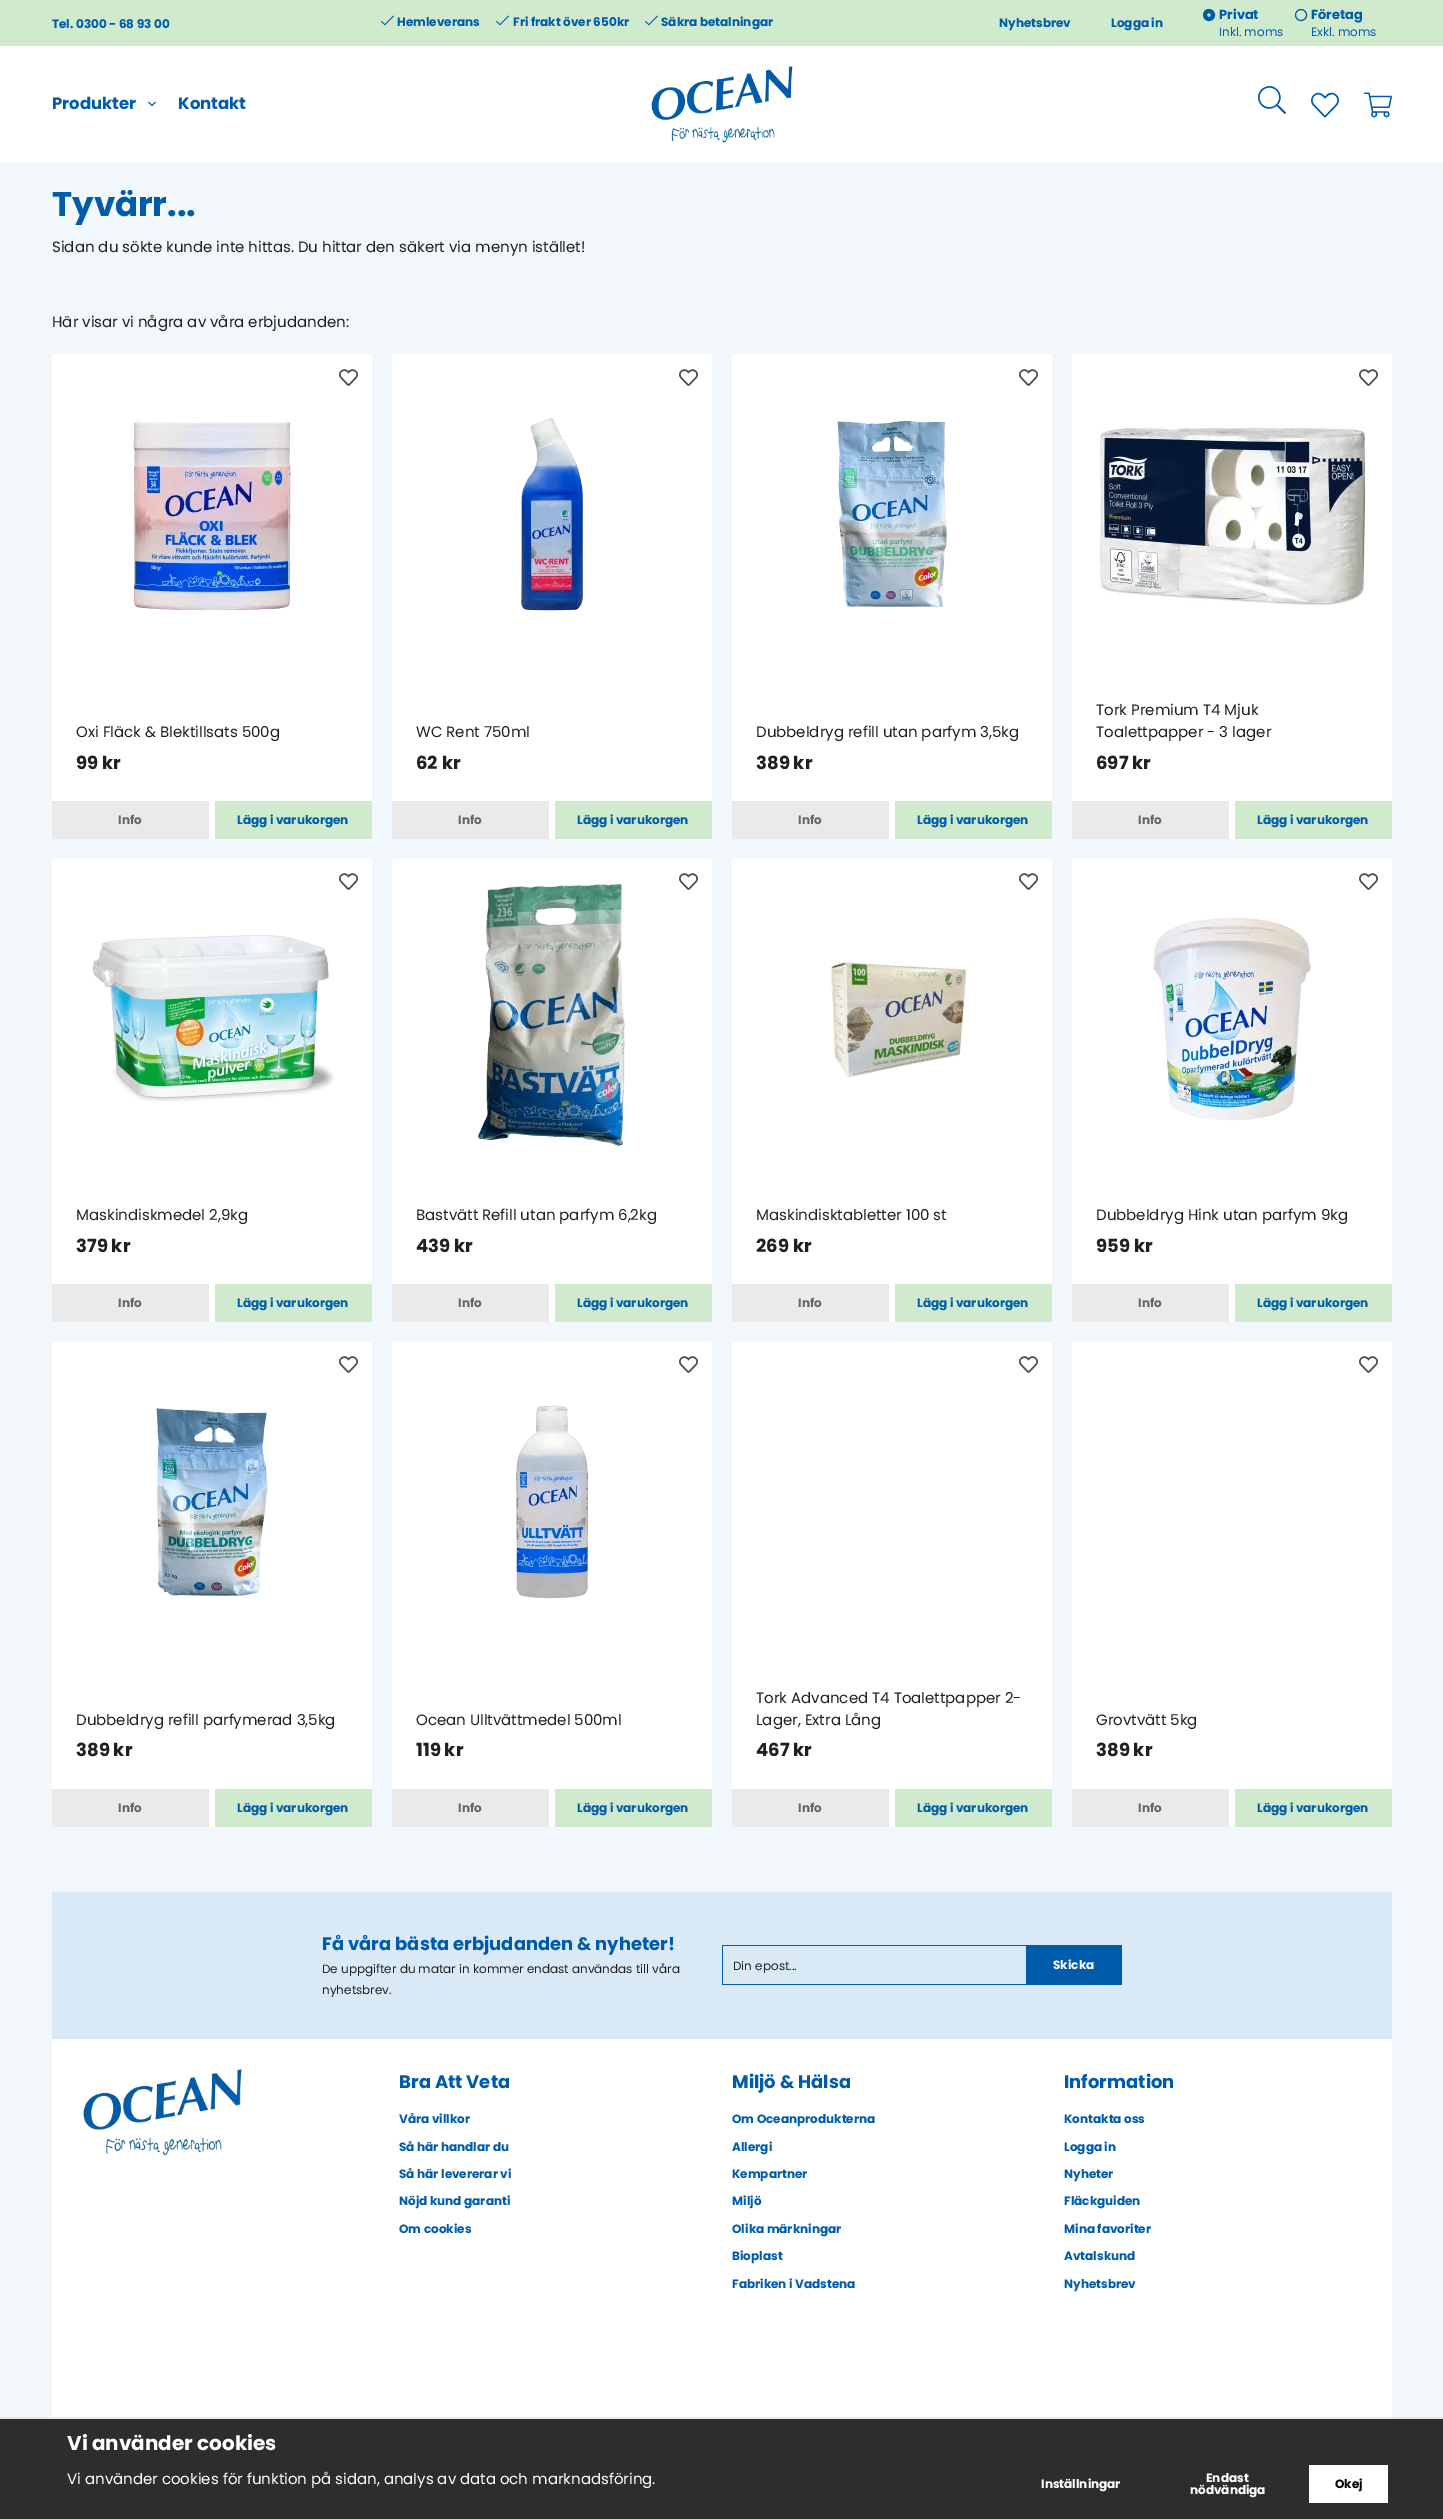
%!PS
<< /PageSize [1443 2519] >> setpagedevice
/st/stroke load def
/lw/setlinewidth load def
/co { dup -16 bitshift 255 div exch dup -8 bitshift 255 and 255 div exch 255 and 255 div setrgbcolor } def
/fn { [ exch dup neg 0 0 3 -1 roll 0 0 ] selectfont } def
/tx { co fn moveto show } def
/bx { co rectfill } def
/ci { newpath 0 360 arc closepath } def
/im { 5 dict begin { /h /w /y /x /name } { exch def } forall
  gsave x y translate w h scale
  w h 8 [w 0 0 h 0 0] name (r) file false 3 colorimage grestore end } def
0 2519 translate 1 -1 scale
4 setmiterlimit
0 0 1443 2519 16#F2F7FB bx
0 0 1443 46 16#D0EACD bx
(media/1.raw) 381 15 13 11 im
(media/1.raw) 496 15 13 11 im
(media/1.raw) 645 15 13 11 im
16#005CAA co
4 lw
1209 15 4 ci st
1 lw
1301 15 5.5 ci st
0 46 1443 117 16#FFFFFF bx
(media/2.raw) 148 101 8 6 im
(media/3.raw) 651 66 142 77 im
(media/4.raw) 1258 86 28 28 im
(media/5.raw) 1311 92 28 26 im
(media/6.raw) 1364 92 28 26 im
52 354 320 485 16#FFFFFF bx
(media/7.raw) 339 369 19 17 im
(media/8.raw) 133 417 158 194 im
52 801 157 38 16#EAEAEA bx
215 801 157 38 16#D0EACD bx
392 354 320 485 16#FFFFFF bx
(media/9.raw) 679 369 19 17 im
(media/10.raw) 521 417 62 194 im
392 801 157 38 16#EAEAEA bx
555 801 157 38 16#D0EACD bx
732 354 320 485 16#FFFFFF bx
(media/9.raw) 1019 369 19 17 im
(media/11.raw) 837 420 110 188 im
732 801 157 38 16#EAEAEA bx
895 801 157 38 16#D0EACD bx
1072 354 320 485 16#FFFFFF bx
(media/7.raw) 1359 369 19 17 im
(media/12.raw) 1097 425 270 180 im
1072 801 157 38 16#EAEAEA bx
1235 801 157 38 16#D0EACD bx
52 859 320 463 16#FFFFFF bx
(media/7.raw) 339 873 19 17 im
(media/13.raw) 92 935 243 167 im
52 1284 157 38 16#EAEAEA bx
215 1284 157 38 16#D0EACD bx
392 859 320 463 16#FFFFFF bx
(media/9.raw) 679 873 19 17 im
(media/14.raw) 478 884 147 262 im
392 1284 157 38 16#EAEAEA bx
555 1284 157 38 16#D0EACD bx
732 859 320 463 16#FFFFFF bx
(media/9.raw) 1019 873 19 17 im
(media/15.raw) 831 962 136 116 im
732 1284 157 38 16#EAEAEA bx
895 1284 157 38 16#D0EACD bx
1072 859 320 463 16#FFFFFF bx
(media/7.raw) 1359 873 19 17 im
(media/16.raw) 1153 917 158 204 im
1072 1284 157 38 16#EAEAEA bx
1235 1284 157 38 16#D0EACD bx
52 1342 320 485 16#FFFFFF bx
(media/7.raw) 339 1356 19 17 im
(media/17.raw) 156 1408 112 188 im
52 1789 157 38 16#EAEAEA bx
215 1789 157 38 16#D0EACD bx
392 1342 320 485 16#FFFFFF bx
(media/9.raw) 679 1356 19 17 im
(media/18.raw) 516 1405 72 194 im
392 1789 157 38 16#EAEAEA bx
555 1789 157 38 16#D0EACD bx
732 1342 320 485 16#FFFFFF bx
(media/9.raw) 1019 1356 19 17 im
732 1789 157 38 16#EAEAEA bx
895 1789 157 38 16#D0EACD bx
1072 1342 320 485 16#FFFFFF bx
(media/7.raw) 1359 1356 19 17 im
1072 1789 157 38 16#EAEAEA bx
1235 1789 157 38 16#D0EACD bx
52 1892 1340 147 16#D9EAF6 bx
722 1945 304 1 16#005CAA bx
722 1984 304 1 16#005CAA bx
722 1945 1 40 16#005CAA bx
1026 1945 96 40 16#005CAA bx
52 2039 1340 378 16#FFFFFF bx
(media/19.raw) 83 2069 159 86 im
0 2419 1443 100 16#2D2D2D bx
0 2417 1443 2 16#E9E9E9 bx
1309 2465 79 38 16#FFFFFF bx
(Tel. 0300 - 68 93 00) 52 28 /Poppins-Bold 12 16#005CAA tx
(Hemleverans) 397 26 /Poppins-Bold 12 16#005CAA tx
(Fri frakt över 650kr) 513 26 /Poppins-Bold 12 16#005CAA tx
(Säkra betalningar) 661 26 /Poppins-Bold 12 16#005CAA tx
(Nyhetsbrev) 999 27 /Poppins-Bold 12 16#005CAA tx
(Logga in) 1111 27 /Poppins-Bold 12 16#005CAA tx
(Privat) 1219 19 /Poppins-Bold 13 16#005CAA tx
(Inkl. moms) 1219 36 /Poppins-Regular 12 16#005CAA tx
(Företag) 1311 19 /Poppins-Bold 13 16#005CAA tx
(Exkl. moms) 1311 36 /Poppins-Regular 12 16#005CAA tx
(Produkter) 52 109 /Poppins-Bold 16.5 16#005CAA tx
(Kontakt) 178 109 /Poppins-Bold 16.5 16#005CAA tx
(Tyvärr...) 52 216 /Poppins-Bold 34 16#005CAA tx
(Sidan du sökte kunde inte hittas. Du hittar den säkert via menyn istället!) 52 252 /Poppins-Regular 15 16#202020 tx
(Här visar vi några av våra erbjudanden:) 52 327 /Poppins-Regular 15 16#202020 tx
(Oxi Fläck & Blektillsats 500g) 76 737 /Poppins-Regular 15 16#202020 tx
(99 kr) 76 769 /Poppins-Bold 18 16#202020 tx
(Info) 118 824 /Poppins-Bold 12 16#666666 tx
(Lägg i varukorgen) 237 824 /Poppins-Bold 12 16#005CAA tx
(WC Rent 750ml) 416 737 /Poppins-Regular 15 16#202020 tx
(62 kr) 416 769 /Poppins-Bold 18 16#202020 tx
(Info) 458 824 /Poppins-Bold 12 16#666666 tx
(Lägg i varukorgen) 577 824 /Poppins-Bold 12 16#005CAA tx
(Dubbeldryg refill utan parfym 3,5kg) 756 737 /Poppins-Regular 15 16#202020 tx
(389 kr) 756 769 /Poppins-Bold 18 16#202020 tx
(Info) 798 824 /Poppins-Bold 12 16#666666 tx
(Lägg i varukorgen) 917 824 /Poppins-Bold 12 16#005CAA tx
(Tork Premium T4 Mjuk) 1096 715 /Poppins-Regular 15 16#202020 tx
(Toalettpapper - 3 lager) 1096 737 /Poppins-Regular 15 16#202020 tx
(697 kr) 1096 769 /Poppins-Bold 18 16#202020 tx
(Info) 1138 824 /Poppins-Bold 12 16#666666 tx
(Lägg i varukorgen) 1257 824 /Poppins-Bold 12 16#005CAA tx
(Maskindiskmedel 2,9kg) 76 1220 /Poppins-Regular 15 16#202020 tx
(379 kr) 76 1252 /Poppins-Bold 18 16#202020 tx
(Info) 118 1307 /Poppins-Bold 12 16#666666 tx
(Lägg i varukorgen) 237 1307 /Poppins-Bold 12 16#005CAA tx
(Bastvätt Refill utan parfym 6,2kg) 416 1220 /Poppins-Regular 15 16#202020 tx
(439 kr) 416 1252 /Poppins-Bold 18 16#202020 tx
(Info) 458 1307 /Poppins-Bold 12 16#666666 tx
(Lägg i varukorgen) 577 1307 /Poppins-Bold 12 16#005CAA tx
(Maskindisktabletter 100 st) 756 1220 /Poppins-Regular 15 16#202020 tx
(269 kr) 756 1252 /Poppins-Bold 18 16#202020 tx
(Info) 798 1307 /Poppins-Bold 12 16#666666 tx
(Lägg i varukorgen) 917 1307 /Poppins-Bold 12 16#005CAA tx
(Dubbeldryg Hink utan parfym 9kg) 1096 1220 /Poppins-Regular 15 16#202020 tx
(959 kr) 1096 1252 /Poppins-Bold 18 16#202020 tx
(Info) 1138 1307 /Poppins-Bold 12 16#666666 tx
(Lägg i varukorgen) 1257 1307 /Poppins-Bold 12 16#005CAA tx
(Dubbeldryg refill parfymerad 3,5kg) 76 1725 /Poppins-Regular 15 16#202020 tx
(389 kr) 76 1756 /Poppins-Bold 18 16#202020 tx
(Info) 118 1812 /Poppins-Bold 12 16#666666 tx
(Lägg i varukorgen) 237 1812 /Poppins-Bold 12 16#005CAA tx
(Ocean Ulltvättmedel 500ml) 416 1725 /Poppins-Regular 15 16#202020 tx
(119 kr) 416 1756 /Poppins-Bold 18 16#202020 tx
(Info) 458 1812 /Poppins-Bold 12 16#666666 tx
(Lägg i varukorgen) 577 1812 /Poppins-Bold 12 16#005CAA tx
(Tork Advanced T4 Toalettpapper 2-) 756 1703 /Poppins-Regular 15 16#202020 tx
(Lager, Extra Lång) 756 1725 /Poppins-Regular 15 16#202020 tx
(467 kr) 756 1756 /Poppins-Bold 18 16#202020 tx
(Info) 798 1812 /Poppins-Bold 12 16#666666 tx
(Lägg i varukorgen) 917 1812 /Poppins-Bold 12 16#005CAA tx
(Grovtvätt 5kg) 1096 1725 /Poppins-Regular 15 16#202020 tx
(389 kr) 1096 1756 /Poppins-Bold 18 16#202020 tx
(Info) 1138 1812 /Poppins-Bold 12 16#666666 tx
(Lägg i varukorgen) 1257 1812 /Poppins-Bold 12 16#005CAA tx
(Få våra bästa erbjudanden & nyheter!) 322 1950 /Poppins-Bold 18 16#005CAA tx
(De uppgifter du matar in kommer endast användas till våra) 322 1973 /Poppins-Regular 12 16#202020 tx
(nyhetsbrev.) 322 1994 /Poppins-Regular 12 16#202020 tx
(Din epost...) 733 1970 /Poppins-Regular 12 16#202020 tx
(Skicka) 1053 1969 /Poppins-Bold 12 16#FFFFFF tx
(Bra Att Veta) 399 2088 /Poppins-Bold 18 16#005CAA tx
(Våra villkor) 399 2123 /Poppins-Bold 12 16#005CAA tx
(Så här handlar du) 399 2151 /Poppins-Bold 12 16#005CAA tx
(Så här levererar vi) 399 2178 /Poppins-Bold 12 16#005CAA tx
(Nöjd kund garanti) 399 2205 /Poppins-Bold 12 16#005CAA tx
(Om cookies) 399 2233 /Poppins-Bold 12 16#005CAA tx
(Miljö & Hälsa) 732 2088 /Poppins-Bold 18 16#005CAA tx
(Om Oceanprodukterna) 732 2123 /Poppins-Bold 12 16#005CAA tx
(Allergi) 732 2151 /Poppins-Bold 12 16#005CAA tx
(Kempartner) 732 2178 /Poppins-Bold 12 16#005CAA tx
(Miljö) 732 2205 /Poppins-Bold 12 16#005CAA tx
(Olika märkningar) 732 2233 /Poppins-Bold 12 16#005CAA tx
(Bioplast) 732 2260 /Poppins-Bold 12 16#005CAA tx
(Fabriken i Vadstena) 732 2288 /Poppins-Bold 12 16#005CAA tx
(Information) 1064 2088 /Poppins-Bold 18 16#005CAA tx
(Kontakta oss) 1064 2123 /Poppins-Bold 12 16#005CAA tx
(Logga in) 1064 2151 /Poppins-Bold 12 16#005CAA tx
(Nyheter) 1064 2178 /Poppins-Bold 12 16#005CAA tx
(Fläckguiden) 1064 2205 /Poppins-Bold 12 16#005CAA tx
(Mina favoriter) 1064 2233 /Poppins-Bold 12 16#005CAA tx
(Avtalskund) 1064 2260 /Poppins-Bold 12 16#005CAA tx
(Nyhetsbrev) 1064 2288 /Poppins-Bold 12 16#005CAA tx
(Vi använder cookies) 67 2450 /Poppins-Bold 20 16#FFFFFF tx
(Vi använder cookies för funktion på sidan, analys av data och marknadsföring.) 67 2484 /Poppins-Regular 15 16#FFFFFF tx
(Inställningar) 1041 2488 /Poppins-Bold 12 16#FFFFFF tx
(Endast) 1206 2482 /Poppins-Bold 12 16#FFFFFF tx
(nödvändiga) 1190 2494 /Poppins-Bold 12 16#FFFFFF tx
(Okej) 1335 2488 /Poppins-Bold 12 16#000000 tx
showpage
